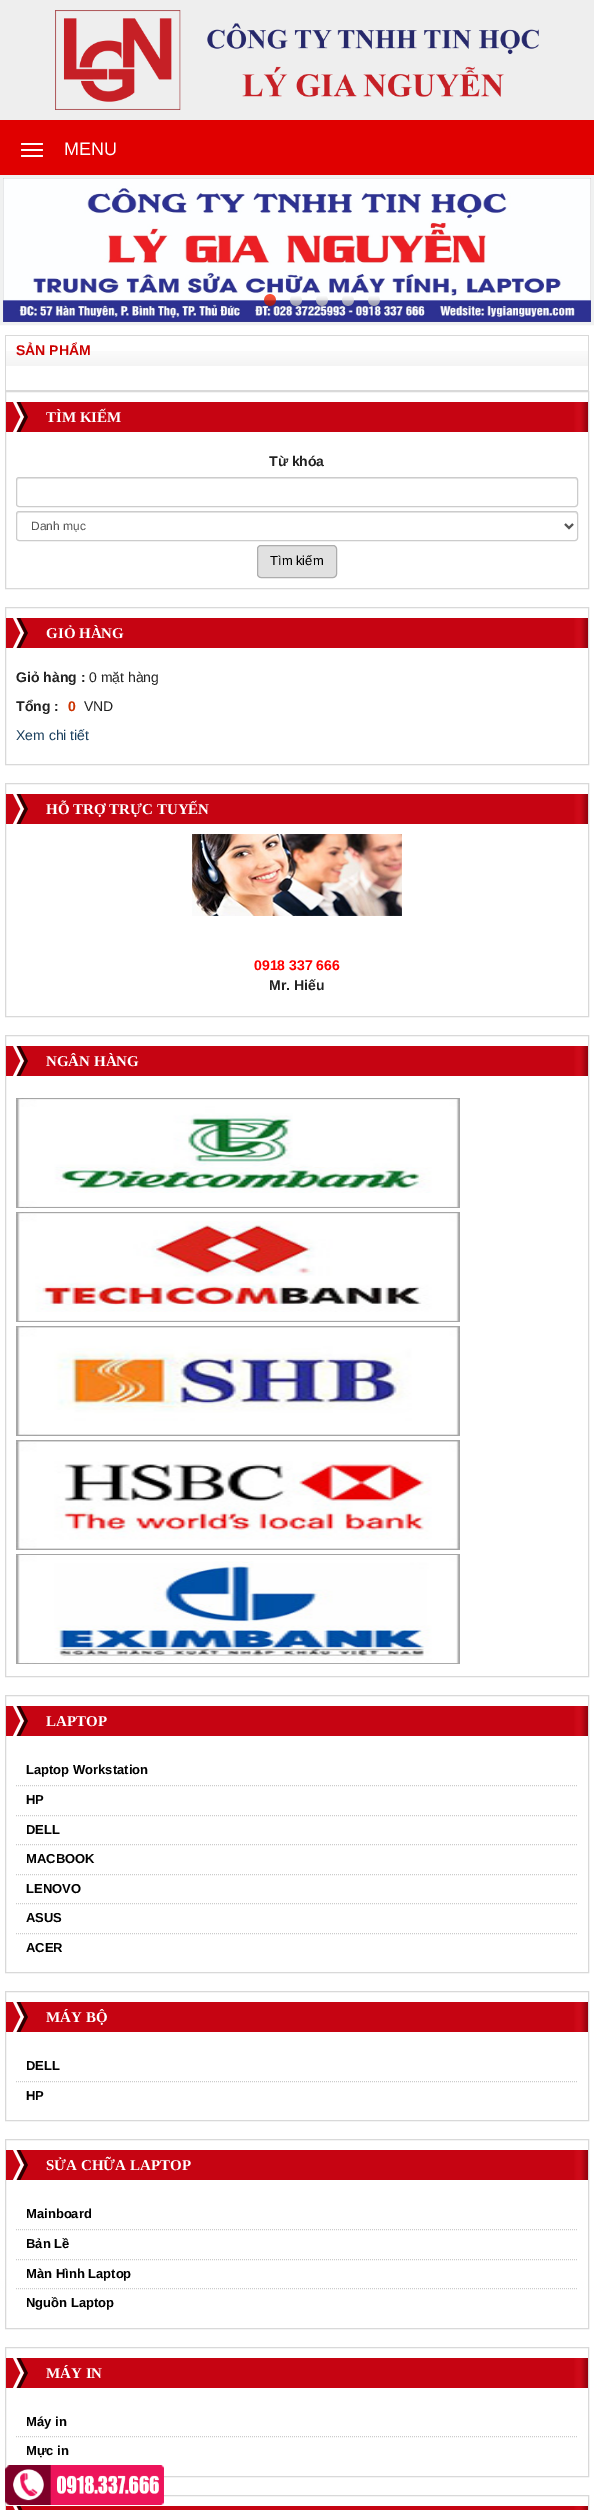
%!PS
<< /PageSize [594 2510] >> setpagedevice
/mt/moveto load def
/li/lineto load def
/ct/curveto load def
/cp/closepath load def
/fl/fill load def
/st/stroke load def
/gs/gsave load def
/gr/grestore load def
/lw/setlinewidth load def
/co { dup -16 bitshift 255 div exch dup -8 bitshift 255 and 255 div exch 255 and 255 div setrgbcolor } def
/fn { [ exch dup neg 0 0 3 -1 roll 0 0 ] selectfont } def
/tx { co fn moveto show } def
/bx { co rectfill } def
/rr { 5 dict begin { /r /h /w /y /x } { exch def } forall
  x r add y moveto x w add y 2 copy h add r arct x w add y h add x 1 index r arct
  x y h add x y r arct x y 2 copy exch w add exch r arct closepath end } def
/im { 5 dict begin { /h /w /y /x /name } { exch def } forall
  gsave x y translate w h scale
  w h 8 [w 0 0 h 0 0] name (r) file false 3 colorimage grestore end } def
0 2510 translate 1 -1 scale
4 setmiterlimit
0 0 594 2510 16#EEEEEE bx
(media/1.raw) 55 10 484 100 im
0 120 594 55 16#E00000 bx
16#FFFFFF co
21 143 22 2 1 rr fl
21 149 22 2 1 rr fl
21 155 22 2 1 rr fl
0 325 594 2185 16#FFFFFF bx
16#F0F1F1 co
3 lw
1.5 176.5 591 147 rectstroke
(media/2.raw) 3 178 588 144 im
(media/3.raw) 264 294 12 12 im
(media/4.raw) 290 296 12 10 im
(media/5.raw) 316 296 12 10 im
(media/6.raw) 342 296 12 10 im
(media/7.raw) 368 296 12 10 im
(media/8.raw) 6 351 582 15 im
5 335 584 1 16#D9D9D9 bx
588 335 1 56 16#D9D9D9 bx
5 335 1 31 16#D9D9D9 bx
5 390 584 1 16#D9D9D9 bx
5 366 1 25 16#D9D9D9 bx
1 lw
5.5 391.5 583 197 rectstroke
(media/9.raw) 6 402 582 30 im
16#ECECEC co
19 479 mt 575 479 li 576 479 577 480 577 481 ct 577 480 577 478 575 478 ct 19 478 li 17 479 li 17 481 li 17 480 18 479 19 479 ct cp fl
16#CCCCCC co
16.5 477.5 561 29 2.5 rr st
16#ECECEC co
19 513 mt 575 513 li 576 513 577 514 577 515 ct 577 514 577 512 575 512 ct 19 512 li 17 513 li 17 515 li 17 514 18 513 19 513 ct cp fl
16#CCCCCC co
16.5 511.5 561 29 2.5 rr st
16#555555 co
2 lw
565 524 mt 569 528 li 573 524 li st
16#E1E1E1 co
257.5 545.5 79 32 3.5 rr gs fl gr
16#ADADAD co
1 lw
st
16#D9D9D9 co
5.5 607.5 583 157 rectstroke
(media/9.raw) 6 618 582 30 im
5.5 783.5 583 233 rectstroke
(media/9.raw) 6 794 582 30 im
(media/10.raw) 192 834 210 82 im
5.5 1035.5 583 641 rectstroke
(media/9.raw) 6 1046 582 30 im
(media/11.raw) 16 1098 444 110 im
(media/12.raw) 16 1212 444 110 im
(media/13.raw) 16 1326 444 110 im
(media/14.raw) 16 1440 444 110 im
(media/15.raw) 16 1554 444 110 im
5.5 1695.5 583 277 rectstroke
(media/9.raw) 6 1706 582 30 im
16#CCCCCC co
[1 1] 0 setdash
16 1785.5 mt 578 1785.5 li st
16 1815.5 mt 578 1815.5 li st
16 1844.5 mt 578 1844.5 li st
16 1874.5 mt 578 1874.5 li st
16 1903.5 mt 578 1903.5 li st
16 1933.5 mt 578 1933.5 li st
16#D9D9D9 co
[] 0 setdash
5.5 1991.5 583 129 rectstroke
(media/9.raw) 6 2002 582 30 im
16#CCCCCC co
[1 1] 0 setdash
16 2081.5 mt 578 2081.5 li st
16#D9D9D9 co
[] 0 setdash
5.5 2139.5 583 189 rectstroke
(media/9.raw) 6 2150 582 30 im
16#CCCCCC co
[1 1] 0 setdash
16 2229.5 mt 578 2229.5 li st
16 2259.5 mt 578 2259.5 li st
16 2288.5 mt 578 2288.5 li st
16#D9D9D9 co
[] 0 setdash
5.5 2347.5 583 129 rectstroke
(media/9.raw) 6 2358 582 30 im
16#CCCCCC co
[1 1] 0 setdash
16 2436.5 mt 578 2436.5 li st
16#D9D9D9 co
[] 0 setdash
5.5 2495.5 583 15 rectstroke
(media/16.raw) 6 2506 582 4 im
(media/17.raw) 5 2465 159 40 im
(MENU) 64 155 /LiberationSans-Regular 18 16#FFFFFF tx
(SẢN PHẨM) 16 355 /LiberationSans-Bold 14 16#CC0000 tx
(TÌM KIẾM) 46 422 /LiberationSerif-Bold 15 16#FFFFFF tx
(Từ khóa) 269 466 /LiberationSans-Bold 14 16#222222 tx
(Danh mục) 31 530 /LiberationSans-Regular 12 16#555555 tx
(Tìm kiếm) 270 565 /LiberationSans-Regular 13 16#000000 tx
(GIỎ HÀNG) 46 638 /LiberationSerif-Bold 15 16#FFFFFF tx
(Giỏ hàng :) 16 682 /LiberationSans-Bold 14 16#222222 tx
(0 mặt hàng) 89 682 /LiberationSans-Regular 14 16#222222 tx
(Tổng :) 16 711 /LiberationSans-Bold 14 16#222222 tx
(0) 68 711 /LiberationSans-Bold 14 16#CC3300 tx
(VND) 84 711 /LiberationSans-Regular 14 16#222222 tx
(Xem chi tiết) 16 740 /LiberationSans-Regular 14 16#1A3F5E tx
(HỖ TRỢ TRỰC TUYẾN) 46 814 /LiberationSerif-Bold 15 16#FFFFFF tx
(0918 337 666) 254 970 /LiberationSans-Bold 14 16#FF0000 tx
(Mr. Hiếu) 269 990 /LiberationSans-Bold 14 16#222222 tx
(NGÂN HÀNG) 46 1066 /LiberationSerif-Bold 15 16#FFFFFF tx
(LAPTOP) 46 1726 /LiberationSerif-Bold 15 16#FFFFFF tx
(Laptop Workstation) 26 1774 /LiberationSans-Bold 13 16#000000 tx
(HP) 26 1804 /LiberationSans-Bold 13 16#000000 tx
(DELL) 26 1834 /LiberationSans-Bold 13 16#000000 tx
(MACBOOK) 26 1863 /LiberationSans-Bold 13 16#000000 tx
(LENOVO) 26 1893 /LiberationSans-Bold 13 16#000000 tx
(ASUS) 26 1922 /LiberationSans-Bold 13 16#000000 tx
(ACER) 26 1952 /LiberationSans-Bold 13 16#000000 tx
(MÁY BỘ) 46 2022 /LiberationSerif-Bold 15 16#FFFFFF tx
(DELL) 26 2070 /LiberationSans-Bold 13 16#000000 tx
(HP) 26 2100 /LiberationSans-Bold 13 16#000000 tx
(SỬA CHỮA LAPTOP) 46 2170 /LiberationSerif-Bold 15 16#FFFFFF tx
(Mainboard) 26 2218 /LiberationSans-Bold 13 16#000000 tx
(Bản Lề) 26 2248 /LiberationSans-Bold 13 16#000000 tx
(Màn Hình Laptop) 26 2278 /LiberationSans-Bold 13 16#000000 tx
(Nguồn Laptop) 26 2307 /LiberationSans-Bold 13 16#000000 tx
(MÁY IN) 46 2378 /LiberationSerif-Bold 15 16#FFFFFF tx
(Máy in) 26 2426 /LiberationSans-Bold 13 16#000000 tx
(Mực in) 26 2455 /LiberationSans-Bold 13 16#000000 tx
showpage
